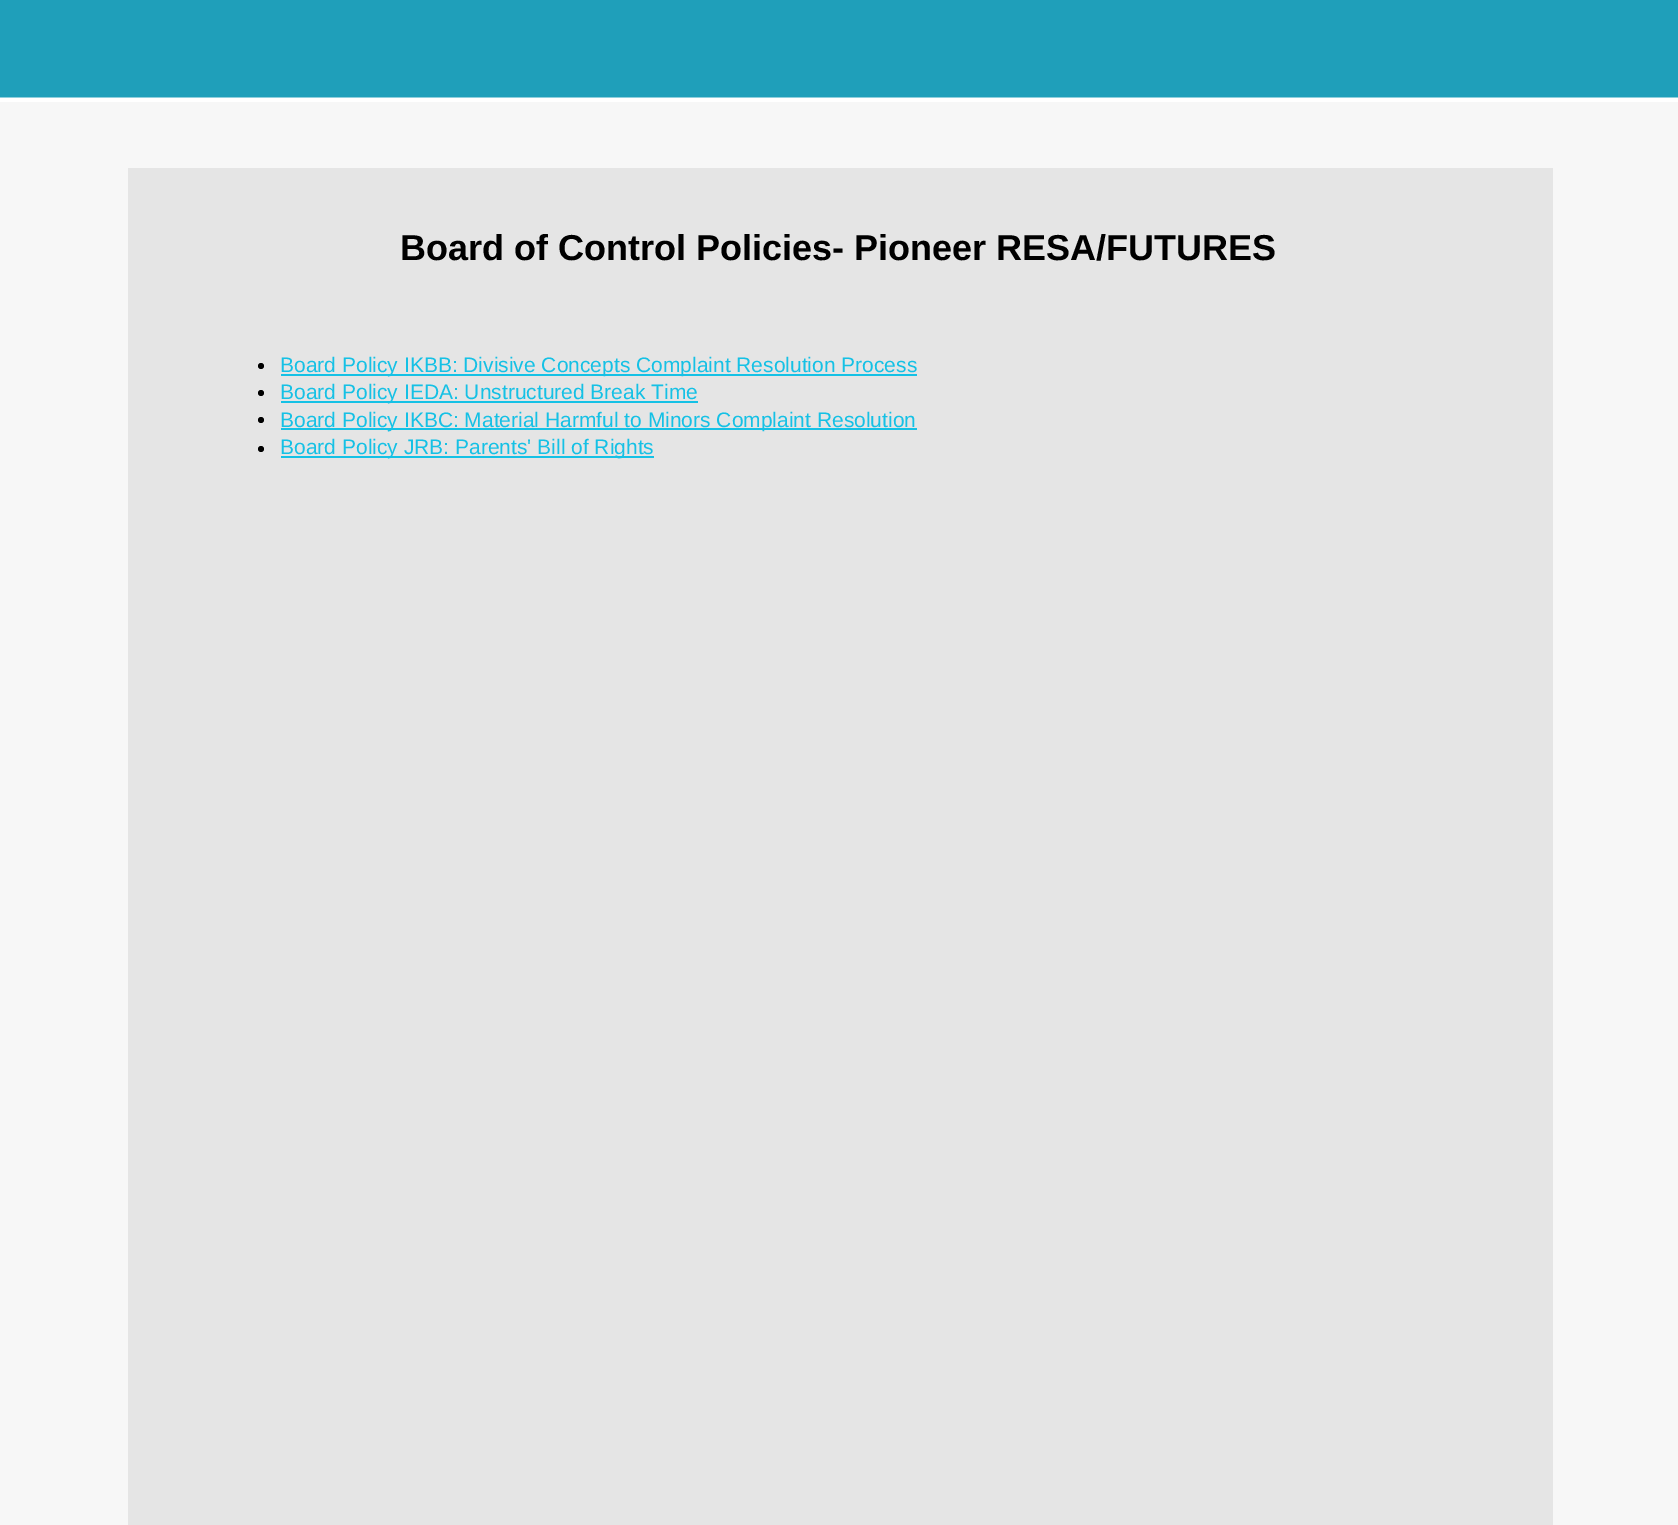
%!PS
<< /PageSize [1678 1525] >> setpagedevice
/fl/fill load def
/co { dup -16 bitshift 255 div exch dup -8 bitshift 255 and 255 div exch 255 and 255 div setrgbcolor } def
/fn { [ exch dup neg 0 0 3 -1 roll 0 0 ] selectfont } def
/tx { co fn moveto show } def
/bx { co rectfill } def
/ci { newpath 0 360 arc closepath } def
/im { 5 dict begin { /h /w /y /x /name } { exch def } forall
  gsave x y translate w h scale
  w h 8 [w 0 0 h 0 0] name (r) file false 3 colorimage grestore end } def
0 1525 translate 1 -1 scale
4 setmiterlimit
0 0 1678 1525 16#F7F7F7 bx
(media/1.raw) 0 0 1678 102 im
128 168 1425 1357 16#E5E5E5 bx
16#000000 co
261 366 3 ci fl
281 374 636 2 16#15C1E5 bx
16#000000 co
261 393 3 ci fl
281 401 417 2 16#15C1E5 bx
16#000000 co
261 420 3 ci fl
281 428 636 2 16#15C1E5 bx
16#000000 co
261 449 3 ci fl
281 456 373 2 16#15C1E5 bx
(Board of Control Policies- Pioneer RESA/FUTURES) 400 260 /LiberationSans-Bold 36 16#000000 tx
(Board Policy IKBB: Divisive Concepts Complaint Resolution Process) 280 372 /LiberationSans-Regular 21 16#15C1E5 tx
(Board Policy IEDA: Unstructured Break Time) 280 399 /LiberationSans-Regular 21 16#15C1E5 tx
(Board Policy IKBC: Material Harmful to Minors Complaint Resolution) 280 427 /LiberationSans-Regular 21 16#15C1E5 tx
(Board Policy JRB: Parents' Bill of Rights) 280 454 /LiberationSans-Regular 21 16#15C1E5 tx
showpage
